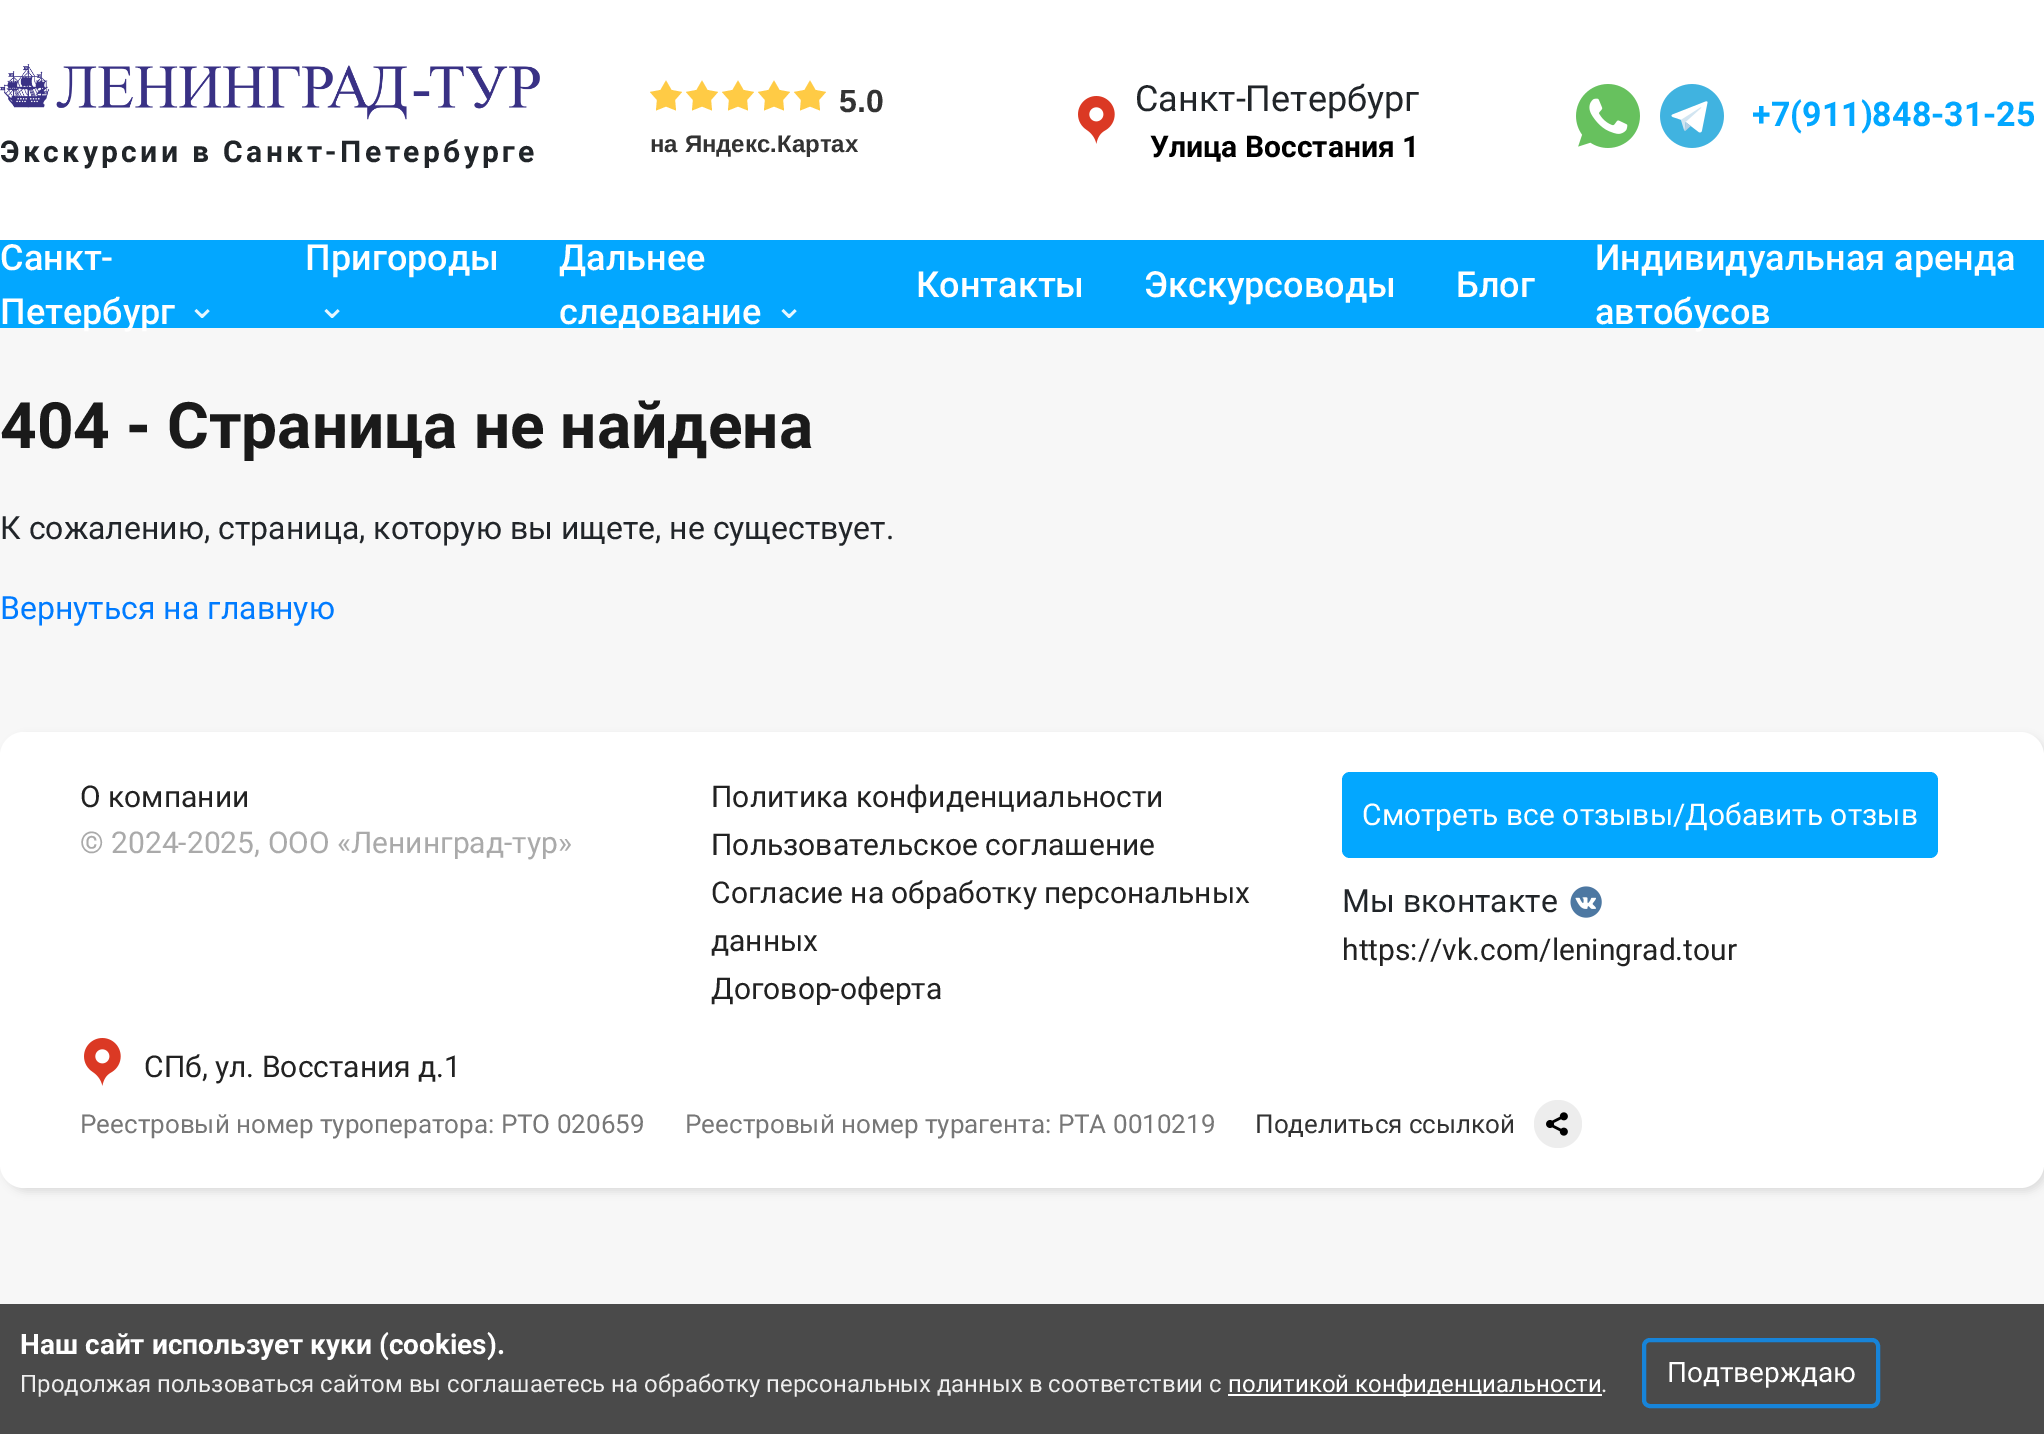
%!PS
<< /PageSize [2044 1434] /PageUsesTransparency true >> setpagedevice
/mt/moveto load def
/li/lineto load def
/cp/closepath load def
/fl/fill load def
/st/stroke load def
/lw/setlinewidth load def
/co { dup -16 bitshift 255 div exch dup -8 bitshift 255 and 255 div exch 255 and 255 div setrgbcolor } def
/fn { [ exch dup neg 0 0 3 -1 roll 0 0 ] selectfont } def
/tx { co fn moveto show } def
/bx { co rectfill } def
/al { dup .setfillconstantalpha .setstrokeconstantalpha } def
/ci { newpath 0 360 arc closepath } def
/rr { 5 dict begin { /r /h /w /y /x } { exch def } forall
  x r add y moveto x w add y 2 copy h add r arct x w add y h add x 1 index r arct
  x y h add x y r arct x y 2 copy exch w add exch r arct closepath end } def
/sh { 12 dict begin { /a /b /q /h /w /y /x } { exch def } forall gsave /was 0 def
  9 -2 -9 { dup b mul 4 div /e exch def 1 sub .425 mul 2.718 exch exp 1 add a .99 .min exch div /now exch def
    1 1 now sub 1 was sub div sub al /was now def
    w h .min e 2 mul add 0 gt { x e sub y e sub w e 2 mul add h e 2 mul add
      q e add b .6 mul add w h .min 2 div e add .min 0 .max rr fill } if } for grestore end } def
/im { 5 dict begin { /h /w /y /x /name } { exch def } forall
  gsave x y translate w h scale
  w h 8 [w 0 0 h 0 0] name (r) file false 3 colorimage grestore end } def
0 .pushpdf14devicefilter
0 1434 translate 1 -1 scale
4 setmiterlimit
0 0 2044 1434 16#F7F7F7 bx
0 0 2044 240 16#FFFFFF bx
16#FFCB45 co
666 80.5 mt 671.5 90 li 682 92 li 675 100 li 676 110.5 li 666 106.5 li 656 110.5 li 657 100 li 650 92 li 660.5 90 li cp fl
702 80.5 mt 707.5 90 li 718 92 li 711 100 li 712 110.5 li 702 106.5 li 692 110.5 li 693 100 li 686 92 li 696.5 90 li cp fl
738 80.5 mt 743.5 90 li 754 92 li 747 100 li 748 110.5 li 738 106.5 li 728 110.5 li 729 100 li 722 92 li 732.5 90 li cp fl
774 80.5 mt 779.5 90 li 790 92 li 783 100 li 784 110.5 li 774 106.5 li 764 110.5 li 765 100 li 758 92 li 768.5 90 li cp fl
810 80.5 mt 815.5 90 li 826 92 li 819 100 li 820 110.5 li 810 106.5 li 800 110.5 li 801 100 li 794 92 li 804.5 90 li cp fl
(media/1.raw) 1078 96 37 48 im
(media/2.raw) 1576 84 64 64 im
(media/3.raw) 1660 84 64 64 im
(media/4.raw) 0 64 540 56 im
0 240 2044 88 16#03A7FF bx
16#000000 co
4 736 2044 456 24 4 .1 sh
16#FFFFFF co
0 732 2044 456 24 rr fl
16#03A7FF co
1342 772 596 86 8 rr fl
(media/5.raw) 1570 886 32 32 im
(media/1.raw) 84 1038 37 48 im
16#EDEDED co
1558 1124 24 ci fl
(media/6.raw) 1546 1112 22 24 im
0 1304 2044 130 16#4A4A4A bx
1228 1394 374 2 16#FFFFFF bx
16#1784D9 co
4 lw
1644 1340 234 66 6 rr st
(5.0) 839 112 /LiberationSans-Bold 32 16#333333 tx
(на Яндекс.Картах) 650 152 /LiberationSans-Bold 24 16#333333 tx
(Санкт-Петербург) 1135 111 /Roboto-Regular 36 16#212529 tx
(Улица Восстания 1) 1150 157 /Roboto-Bold 30 16#000000 tx
(+7\(911\)848-31-25) 1752 126 /Roboto-Bold 34 16#03A7FF tx
/Roboto-Bold 30 fn
16#212529 co
0 162 mt 3.4 0 (Экскурсии в Санкт-Петербурге) ashow
(Санкт-) 0 270 /Roboto-Medium 36 16#FFFFFF tx
(Петербург) 0 324 /Roboto-Medium 36 16#FFFFFF tx
(⌄) 187 318 /DejaVuSans-Regular 36 16#E6F6FF tx
(Пригороды) 305 270 /Roboto-Medium 36 16#FFFFFF tx
(⌄) 317 318 /DejaVuSans-Regular 36 16#E6F6FF tx
(Дальнее) 559 270 /Roboto-Medium 36 16#FFFFFF tx
(следование) 559 324 /Roboto-Medium 36 16#FFFFFF tx
(⌄) 774 318 /DejaVuSans-Regular 36 16#E6F6FF tx
(Контакты) 916 297 /Roboto-Medium 36 16#FFFFFF tx
(Экскурсоводы) 1144 297 /Roboto-Medium 36 16#FFFFFF tx
(Блог) 1456 297 /Roboto-Medium 36 16#FFFFFF tx
(Индивидуальная аренда) 1595 270 /Roboto-Medium 36 16#FFFFFF tx
(автобусов) 1595 324 /Roboto-Medium 36 16#FFFFFF tx
(404 - Страница не найдена) 0 448 /Roboto-Bold 64 16#1A1A1A tx
(К сожалению, страница, которую вы ищете, не существует.) 0 539 /Roboto-Regular 32 16#212529 tx
(Вернуться на главную) 0 619 /Roboto-Regular 32 16#007BFF tx
(О компании) 80 807 /Roboto-Regular 30 16#222222 tx
(© 2024-2025, ООО «Ленинград-тур») 80 853 /Roboto-Regular 30 16#AAAAAA tx
(Политика конфиденциальности) 711 807 /Roboto-Regular 30 16#222222 tx
(Пользовательское соглашение) 711 855 /Roboto-Regular 30 16#222222 tx
(Согласие на обработку персональных) 711 903 /Roboto-Regular 30 16#222222 tx
(данных) 711 951 /Roboto-Regular 30 16#222222 tx
(Договор-оферта) 711 999 /Roboto-Regular 30 16#222222 tx
(Смотреть все отзывы/Добавить отзыв) 1362 825 /Roboto-Regular 30 16#FFFFFF tx
(Мы вконтакте) 1342 912 /Roboto-Regular 32 16#212529 tx
(https://vk.com/leningrad.tour) 1342 960 /Roboto-Regular 30 16#222222 tx
(СПб, ул. Восстания д.1) 144 1077 /Roboto-Regular 30 16#222222 tx
(Реестровый номер туроператора: РТО 020659) 80 1133 /Roboto-Regular 26 16#777777 tx
(Реестровый номер турагента: РТА 0010219) 685 1133 /Roboto-Regular 26 16#777777 tx
(Поделиться ссылкой) 1255 1133 /Roboto-Regular 26 16#333333 tx
(Наш сайт использует куки \(cookies\).) 20 1354 /Roboto-Bold 28 16#FFFFFF tx
(Продолжая пользоваться сайтом вы соглашаетесь на обработку персональных данных в соответствии с) 20 1392 /Roboto-Regular 24 16#EEEEEE tx
(политикой конфиденциальности) 1228 1392 /Roboto-Regular 24 16#FFFFFF tx
(.) 1601 1392 /Roboto-Regular 24 16#EEEEEE tx
(Подтверждаю) 1667 1382 /Roboto-Regular 28 16#FFFFFF tx
.poppdf14devicefilter showpage
